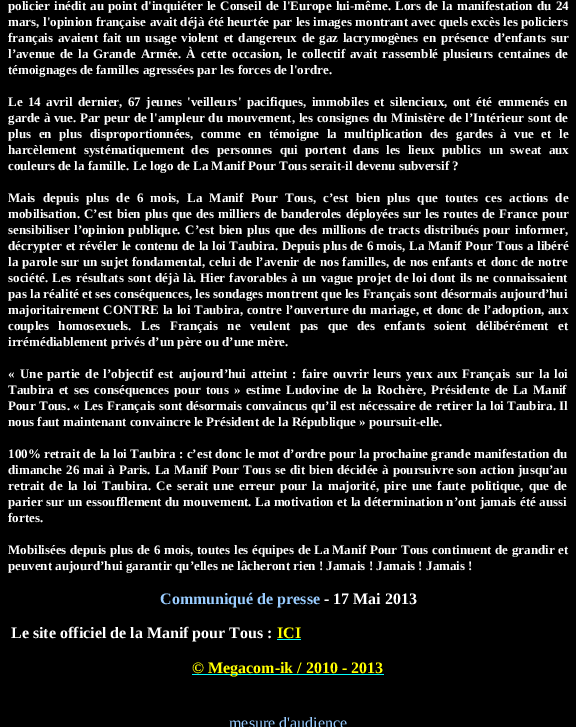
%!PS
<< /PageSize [576 727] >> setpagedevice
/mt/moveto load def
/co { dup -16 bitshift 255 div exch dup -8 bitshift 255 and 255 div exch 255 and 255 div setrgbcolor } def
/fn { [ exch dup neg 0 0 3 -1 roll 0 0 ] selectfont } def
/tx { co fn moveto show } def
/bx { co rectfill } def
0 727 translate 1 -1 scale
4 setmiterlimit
0 0 576 727 16#000000 bx
277 639 24 1 16#00FFFF bx
192 674 192 1 16#00FFFF bx
/LiberationSerif-Bold 13 fn
16#FFFFFF co
8 10 mt 1 0 32 (policier inédit) widthshow
90 10 mt 1 0 32 (au point) widthshow
141 10 mt 1 0 32 (d'inquiéter le Conseil de l'Europe lui-même. Lors de la manifestation du 24) widthshow
8 26 mt .25 0 32 (mars, l'opinion française avait déjà été heurtée par les images montrant avec) widthshow
(quels excès les policiers) 439 26 /LiberationSerif-Bold 13 16#FFFFFF tx
8 42 mt 1.5 0 32 (français avaient fait un usage violent et dangereux de) widthshow
319 42 mt 1.5 0 32 (gaz lacrymogènes en présence d’enfants sur) widthshow
8 58 mt 1.75 0 32 (l’avenue de la Grande Armée. À cette) widthshow
232 58 mt 1.75 0 32 (occasion, le collectif avait rassemblé plusieurs centaines de) widthshow
(témoignages de familles agressées par les forces de l'ordre.) 8 74 /LiberationSerif-Bold 13 16#FFFFFF tx
8 106 mt 2.25 0 32 (Le 14 avril dernier, 67 jeunes) widthshow
187 106 mt 2.25 0 32 ('veilleurs' pacifiques, immobiles et silencieux, ont été emmenés en) widthshow
8 122 mt .5 0 32 (garde à vue.) widthshow
80 122 mt .5 0 32 (Par peur de l'ampleur du mouvement, les consignes du Ministère de l’Intérieur) widthshow
528 122 mt .5 0 32 (sont de) widthshow
8 138 mt 4.25 0 32 (plus en plus disproportionnées, comme en témoigne la multiplication des) widthshow
456 138 mt 4.25 0 32 (gardes à vue et le) widthshow
8 154 mt 4 0 32 (harcèlement systématiquement des personnes qui portent dans) widthshow
386 154 mt 4 0 32 (les lieux publics un sweat aux) widthshow
(couleurs de la famille. Le logo de La Manif Pour Tous serait-il devenu subversif ?) 8 170 /LiberationSerif-Bold 13 16#FFFFFF tx
8 202 mt 4 0 32 (Mais depuis plus de 6 mois, La Manif Pour Tous, c’est) widthshow
356 202 mt 4 0 32 (bien plus que toutes ces actions de) widthshow
8 218 mt .75 0 32 (mobilisation. C’est bien plus que des) widthshow
218 218 mt .75 0 32 (milliers de banderoles déployées sur les routes de France pour) widthshow
(sensibiliser) 8 234 /LiberationSerif-Bold 13 16#FFFFFF tx
74 234 mt 1.25 0 32 (l’opinion publique. C’est bien plus que des millions de tracts distribués pour) widthshow
(informer,) 515 234 /LiberationSerif-Bold 13 16#FFFFFF tx
8 250 mt .25 0 32 (décrypter et révéler le contenu de la loi Taubira. Depuis plus de 6) widthshow
(mois,) 376 250 /LiberationSerif-Bold 13 16#FFFFFF tx
409 250 mt .25 0 32 (La Manif Pour Tous a libéré) widthshow
8 266 mt .6 0 32 (la parole sur un sujet) widthshow
132 266 mt .6 0 32 (fondamental, celui de l’avenir de nos familles, de nos enfants et donc de notre) widthshow
(société.) 8 282 /LiberationSerif-Bold 13 16#FFFFFF tx
(Les) 52 282 /LiberationSerif-Bold 13 16#FFFFFF tx
76 282 mt 1 0 32 (résultats sont déjà là) widthshow
(.) 193 282 /LiberationSerif-Bold 13 16#FFFFFF tx
200 282 mt .9 0 32 (Hier favorables à un vague projet de loi dont ils ne connaissaient) widthshow
(pas la réalité et ses conséquences, les sondages montrent que les Français sont désormais aujourd’hui) 8 298 /LiberationSerif-Bold 13 16#FFFFFF tx
8 314 mt .5 0 32 (majoritairement CONTRE la loi Taubira, contre l’ouverture) widthshow
352 314 mt .5 0 32 (du mariage, et donc de l’adoption, aux) widthshow
8 330 mt 6 0 32 (couples homosexuels. Les Français ne) widthshow
250 330 mt 6 0 32 (veulent pas que des enfants soient délibérément et) widthshow
(irrémédiablement privés d’un père ou d’une mère.) 8 346 /LiberationSerif-Bold 13 16#FFFFFF tx
(«) 8 378 /LiberationSerif-Bold 13 16#FFFFFF tx
(Une) 20 378 /LiberationSerif-Bold 13 16#FFFFFF tx
47 378 mt 1.9 0 32 (partie de l’objectif est aujourd’hui atteint : faire ouvrir leurs yeux aux) widthshow
462 378 mt 2 0 32 (Français sur la loi) widthshow
8 394 mt 1.75 0 32 (Taubira et ses conséquences pour tous) widthshow
234 394 mt 1.75 0 32 (» estime Ludovine de la Rochère, Présidente de La Manif) widthshow
8 410 mt .4 0 32 (Pour Tous. « Les) widthshow
107 410 mt .4 0 32 (Français sont désormais convaincus qu’il est nécessaire de retirer la loi) widthshow
(Taubira. Il) 507 410 /LiberationSerif-Bold 13 16#FFFFFF tx
(nous faut maintenant convaincre le Président de la République » poursuit-elle.) 8 426 /LiberationSerif-Bold 13 16#FFFFFF tx
8 458 mt .1 0 32 (100% retrait de la loi Taubira : c’est donc le mot d’ordre pour la prochaine grande manifestation du) widthshow
8 474 mt .75 0 32 (dimanche 26 mai à Paris. La Manif Pour Tous se) widthshow
290 474 mt .75 0 32 (dit bien décidée à poursuivre son action jusqu’au) widthshow
8 490 mt 2.1 0 32 (retrait de la loi Taubira. Ce) widthshow
177 490 mt 2.1 0 32 (serait une erreur pour la majorité, pire une faute politique, que de) widthshow
8 506 mt .25 0 32 (parier sur) widthshow
68 506 mt .25 0 32 (un essoufflement du mouvement.) widthshow
255 506 mt .25 0 32 (La motivation et la détermination n’ont jamais été aussi) widthshow
(fortes.) 8 522 /LiberationSerif-Bold 13 16#FFFFFF tx
8 554 mt .5 0 32 (Mobilisées depuis plus de 6 mois, toutes les équipes de La) widthshow
332 554 mt .5 0 32 (Manif Pour Tous continuent de grandir et) widthshow
(peuvent aujourd’hui garantir qu’elles ne lâcheront rien ! Jamais ! Jamais ! Jamais !) 8 570 /LiberationSerif-Bold 13 16#FFFFFF tx
(Communiqué de presse) 160 604 /LiberationSerif-Bold 16 16#99CCFF tx
(- 17 Mai 2013) 324 604 /LiberationSerif-Bold 16 16#FFFFFF tx
(Le site officiel de la Manif pour Tous :) 11 638 /LiberationSerif-Bold 16 16#FFFFFF tx
(ICI) 277 638 /LiberationSerif-Bold 16 16#FFFF00 tx
(© Megacom-ik / 2010 - 2013) 192 673 /LiberationSerif-Bold 16 16#FFFF00 tx
(mesure d'audience) 229 728 /LiberationSerif-Regular 16 16#99CCFF tx
showpage
